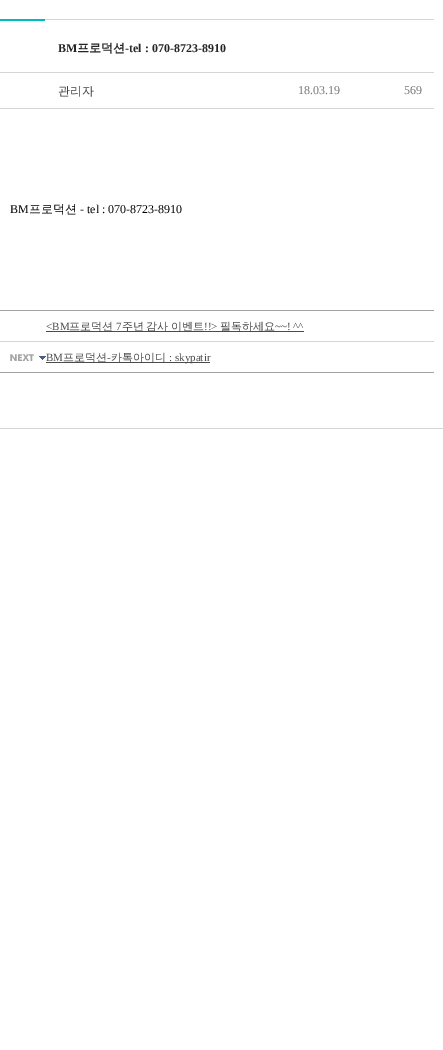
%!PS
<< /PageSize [443 1050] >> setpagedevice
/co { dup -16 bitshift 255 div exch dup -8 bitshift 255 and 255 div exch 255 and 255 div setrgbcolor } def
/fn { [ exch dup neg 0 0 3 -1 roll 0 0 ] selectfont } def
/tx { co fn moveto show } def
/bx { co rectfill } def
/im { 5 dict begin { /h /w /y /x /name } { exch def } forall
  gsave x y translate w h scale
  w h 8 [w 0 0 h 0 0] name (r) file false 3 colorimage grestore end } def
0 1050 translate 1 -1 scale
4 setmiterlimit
0 0 443 1050 16#FFFFFF bx
0 428 443 1 16#D5D5D5 bx
0 19 45 2 16#00BBBB bx
45 19 389 1 16#D5D5D5 bx
0 72 434 1 16#D5D5D5 bx
0 108 434 1 16#D5D5D5 bx
0 310 434 1 16#A2A2A2 bx
0 372 434 1 16#A2A2A2 bx
46 331 258 1 16#4B4B4B bx
0 341 434 1 16#D5D5D5 bx
(media/1.raw) 10 354 36 7 im
46 362 164 1 16#4B4B4B bx
(BM) 58 52 /LiberationSerif-Bold 12 16#252525 tx
(프로덕션) 77 52 /WenQuanYiZenHei-Bold 12 16#252525 tx
(-tel : 070-8723-8910) 125 52 /LiberationSerif-Bold 12 16#252525 tx
(관리자) 58 95 /WenQuanYiZenHei-Medium 12 16#444444 tx
(18.03.19) 298 94 /LiberationSerif-Regular 12 16#767676 tx
(569) 404 94 /LiberationSerif-Regular 12 16#767676 tx
(BM) 10 213 /LiberationSerif-Regular 12 16#000000 tx
(프로덕션) 29 213 /WenQuanYiZenHei-Medium 12 16#000000 tx
(- tel : 070-8723-8910) 80 213 /LiberationSerif-Regular 12 16#000000 tx
(<BM) 46 330 /LiberationSerif-Regular 11 16#4B4B4B tx
(프로덕션) 69 330 /WenQuanYiZenHei-Medium 11 16#4B4B4B tx
(7) 116 330 /LiberationSerif-Regular 11 16#4B4B4B tx
(주년) 122 330 /WenQuanYiZenHei-Medium 11 16#4B4B4B tx
(감사) 146 330 /WenQuanYiZenHei-Medium 11 16#4B4B4B tx
(이벤트) 171 330 /WenQuanYiZenHei-Medium 11 16#4B4B4B tx
(!!>) 204 330 /LiberationSerif-Regular 11 16#4B4B4B tx
(필독하세요) 220 330 /WenQuanYiZenHei-Medium 11 16#4B4B4B tx
(~~! ^^) 275 330 /LiberationSerif-Regular 11 16#4B4B4B tx
(BM) 46 361 /LiberationSerif-Regular 11 16#4B4B4B tx
(프로덕션) 63 361 /WenQuanYiZenHei-Medium 11 16#4B4B4B tx
(-) 107 361 /LiberationSerif-Regular 11 16#4B4B4B tx
(카톡아이디) 111 361 /WenQuanYiZenHei-Medium 11 16#4B4B4B tx
(: skypatir) 169 361 /LiberationSerif-Regular 11 16#4B4B4B tx
showpage
